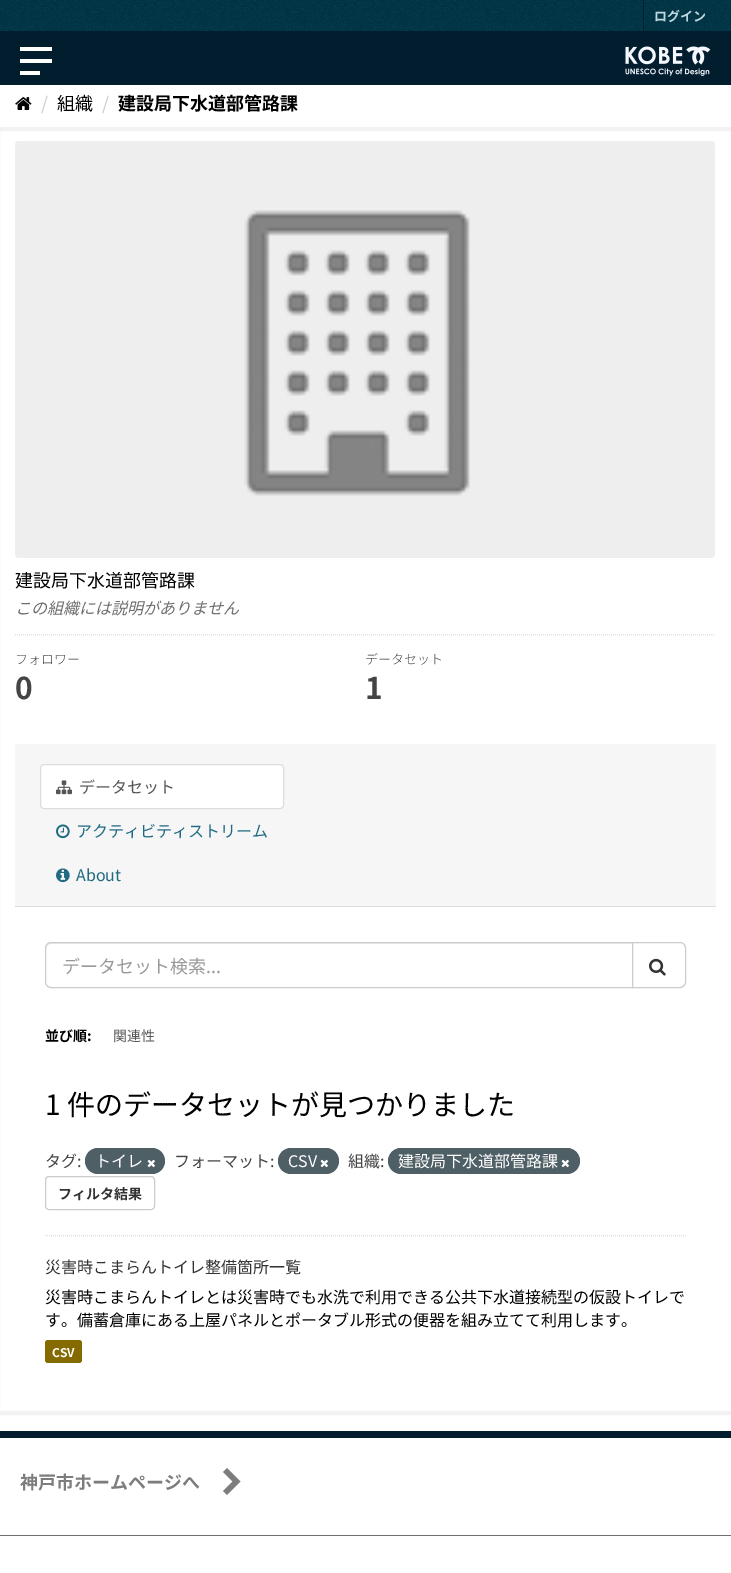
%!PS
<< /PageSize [731 1573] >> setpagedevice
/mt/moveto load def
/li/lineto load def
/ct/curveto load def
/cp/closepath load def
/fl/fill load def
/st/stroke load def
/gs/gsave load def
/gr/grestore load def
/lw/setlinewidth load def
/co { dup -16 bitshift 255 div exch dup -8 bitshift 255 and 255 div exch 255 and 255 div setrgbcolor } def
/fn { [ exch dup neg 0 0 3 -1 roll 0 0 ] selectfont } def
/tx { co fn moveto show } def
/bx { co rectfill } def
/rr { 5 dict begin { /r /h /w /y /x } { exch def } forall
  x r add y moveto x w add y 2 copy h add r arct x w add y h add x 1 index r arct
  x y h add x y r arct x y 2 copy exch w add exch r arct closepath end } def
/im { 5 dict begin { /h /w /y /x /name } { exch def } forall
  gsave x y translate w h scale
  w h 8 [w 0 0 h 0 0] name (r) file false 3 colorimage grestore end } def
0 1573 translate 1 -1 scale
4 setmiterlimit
0 0 731 1573 16#FFFFFF bx
0 0 731 31 16#003647 bx
(media/1.raw) 0 0 731 31 im
643 0 1 31 16#00232E bx
0 31 731 54 16#021D2E bx
20 47 32 4 16#FFFFFF bx
20 59 32 4 16#FFFFFF bx
20 71 20 4 16#FFFFFF bx
(media/2.raw) 625 46 86 30 im
(media/3.raw) 15 97 17 13 im
16#F2F2F2 co
4 lw
-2 129 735 1284 rectstroke
(media/4.raw) 15 141 700 417 im
16#DDDDDD co
1 lw
[1 1] 0 setdash
15 634.5 mt 715 634.5 li st
16#F6F6F6 co
15 744 mt 713 744 li 714.5 744 716 745.5 716 747 ct 716 907 li 15 907 li cp fl
15 906 701 1 16#DDDDDD bx
16#FFFFFF co
40.5 764.5 243 44 3.5 rr gs fl gr
16#DDDDDD co
[] 0 setdash
st
(media/5.raw) 56 780 16 15 im
(media/6.raw) 56 824 14 15 im
(media/7.raw) 56 868 14 15 im
[1 1] 0 setdash
45 1235.5 mt 686 1235.5 li st
16#ECECEC co
51 944 mt 632 944 li 632 943 li 51 943 li 48 943 46 946 46 949 ct 46 946 48 944 51 944 ct cp fl
16#CCCCCC co
[] 0 setdash
51 942.5 mt 632.5 942.5 li 632.5 987.5 li 51 987.5 li 48 987.5 45.5 985 45.5 982 ct 45.5 948 li 45.5 945 48 942.5 51 942.5 ct cp st
16#FFFFFF co
632.5 942.5 mt 680 942.5 li 683 942.5 685.5 945 685.5 948 ct 685.5 982 li 685.5 985 683 987.5 680 987.5 ct 632.5 987.5 li cp gs fl gr
16#CCCCCC co
st
(media/8.raw) 649 958 17 18 im
16#4E5F65 co
85 1148 80 26 13 rr fl
(media/9.raw) 147 1159 8 9 im
278 1148 61 26 13 rr fl
(media/9.raw) 320 1159 8 9 im
388 1148 192 26 13 rr fl
(media/9.raw) 561 1159 8 9 im
16#CCCCCC co
45.5 1176.5 109 33 3.5 rr st
16#856A00 co
45 1340 37 23 3 rr fl
0 1431 731 7 16#021D2E bx
16#7D7D7D co
240.5 1481.5 mt 227 1495 li 223 1491 li 232.5 1481.5 li 223 1472 li 227 1468 li cp fl
0 1535 731 1 16#707070 bx
(ログイン) 654 21 /NotoSansJP-Bold 13 16#BFD7DE tx
(/) 41 110 /NotoSansJP-Regular 18 16#CCCCCC tx
(組織) 57 110 /NotoSansJP-Regular 18 16#000000 tx
(/) 102 110 /NotoSansJP-Regular 18 16#CCCCCC tx
(建設局下水道部管路課) 118 110 /NotoSansJP-Bold 18 16#000000 tx
(建設局下水道部管路課) 15 587 /NotoSansJP-Regular 18 16#000000 tx
(この組織には説明がありません) 15 614 /NotoSansJP-Italic 16 16#6E6E6E tx
(フォロワー) 15 664 /NotoSansJP-Light 13 16#444444 tx
(0) 15 699 /NotoSansJP-Bold 30 16#444444 tx
(データセット) 365 664 /NotoSansJP-Light 13 16#444444 tx
(1) 365 699 /NotoSansJP-Bold 30 16#444444 tx
(データセット) 79 793 /NotoSansJP-Regular 16 16#555555 tx
(アクティビティストリーム) 76 837 /NotoSansJP-Regular 16 16#206B82 tx
(About) 76 881 /NotoSansJP-Regular 16 16#206B82 tx
(データセット検索...) 62 973 /NotoSansJP-Regular 18 16#999999 tx
(並び順:) 45 1041 /NotoSansJP-Bold 14 16#000000 tx
(関連性) 113 1041 /NotoSansJP-Regular 14 16#555555 tx
(1 件のデータセットが見つかりました) 45 1115 /NotoSansJP-Regular 28 16#000000 tx
(タグ:) 45 1167 /NotoSansJP-Regular 16 16#444444 tx
(トイレ) 95 1167 /NotoSansJP-Regular 16 16#FFFFFF tx
(フォーマット:) 174 1167 /NotoSansJP-Regular 16 16#444444 tx
(CSV) 288 1167 /NotoSansJP-Regular 16 16#FFFFFF tx
(組織:) 348 1167 /NotoSansJP-Regular 16 16#444444 tx
(建設局下水道部管路課) 398 1167 /NotoSansJP-Regular 16 16#FFFFFF tx
(フィルタ結果) 58 1199 /NotoSansJP-Bold 14 16#333333 tx
(災害時こまらんトイレ整備箇所一覧) 45 1273 /NotoSansJP-Regular 16 16#333333 tx
(災害時こまらんトイレとは災害時でも水洗で利用できる公共下水道接続型の仮設トイレで) 45 1303 /NotoSansJP-Regular 16 16#000000 tx
(す。備蓄倉庫にある上屋パネルとポータブル形式の便器を組み立てて利用します。) 45 1326 /NotoSansJP-Regular 16 16#000000 tx
(CSV) 52 1357 /NotoSansJP-Bold 12 16#FFFFFF tx
(神戸市ホームページへ) 20 1489 /NotoSansJP-Bold 18 16#7D7D7D tx
showpage
